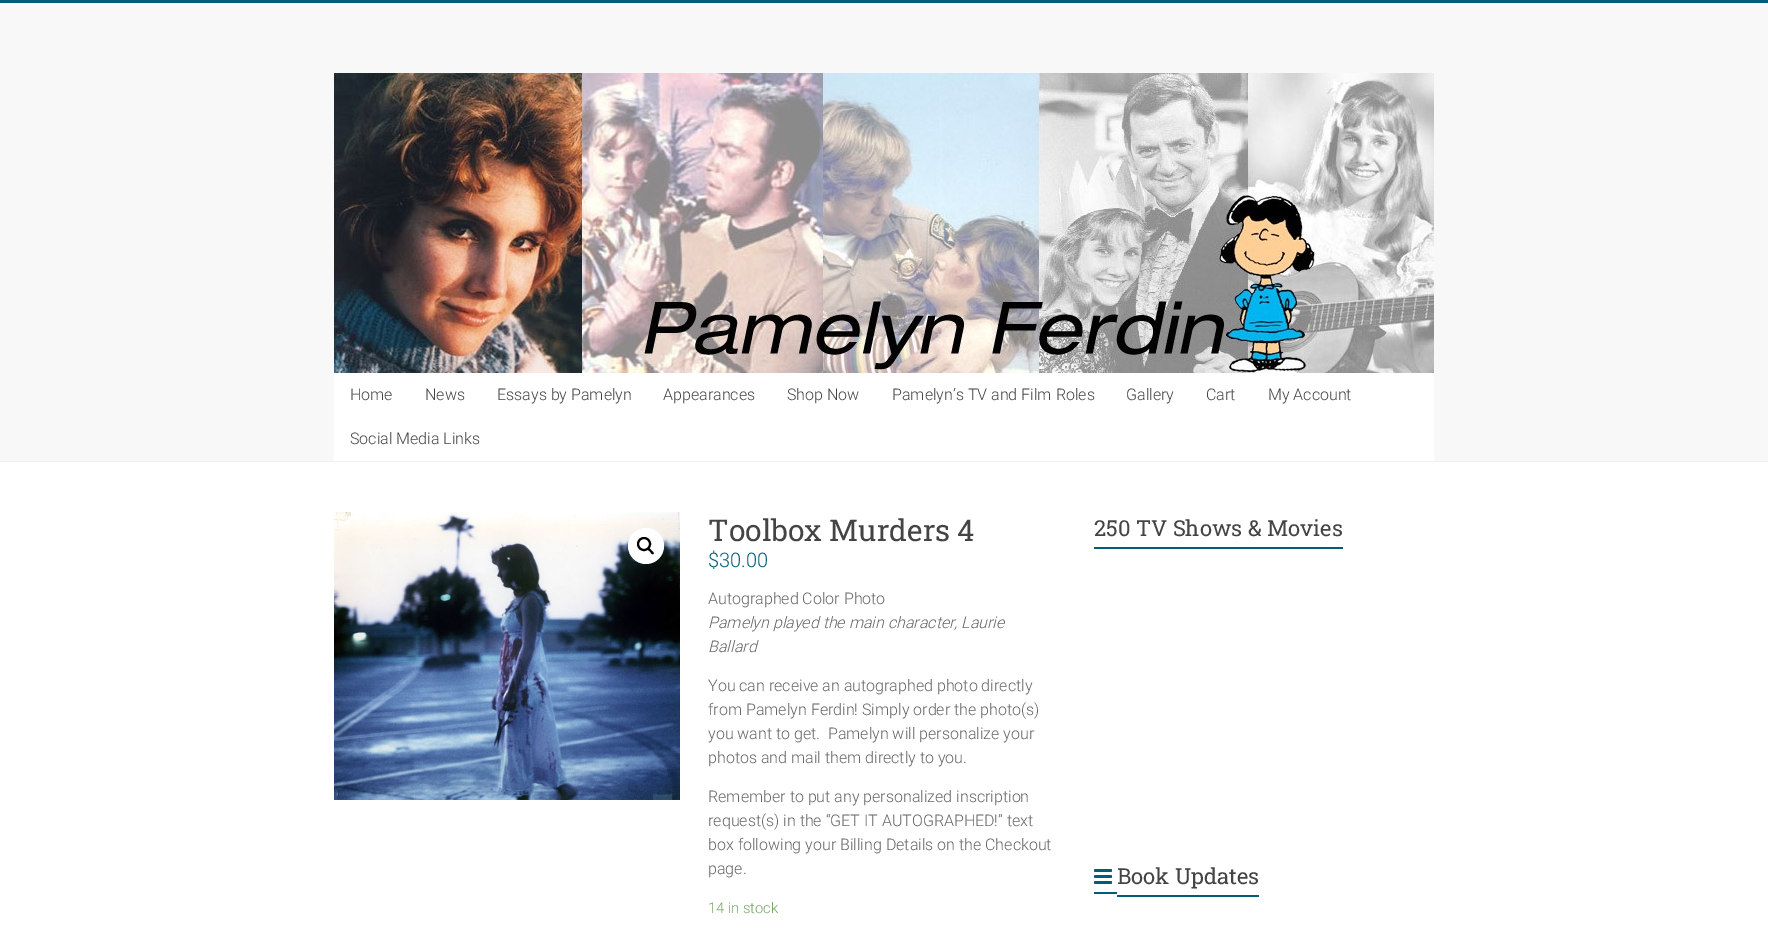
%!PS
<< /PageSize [1768 929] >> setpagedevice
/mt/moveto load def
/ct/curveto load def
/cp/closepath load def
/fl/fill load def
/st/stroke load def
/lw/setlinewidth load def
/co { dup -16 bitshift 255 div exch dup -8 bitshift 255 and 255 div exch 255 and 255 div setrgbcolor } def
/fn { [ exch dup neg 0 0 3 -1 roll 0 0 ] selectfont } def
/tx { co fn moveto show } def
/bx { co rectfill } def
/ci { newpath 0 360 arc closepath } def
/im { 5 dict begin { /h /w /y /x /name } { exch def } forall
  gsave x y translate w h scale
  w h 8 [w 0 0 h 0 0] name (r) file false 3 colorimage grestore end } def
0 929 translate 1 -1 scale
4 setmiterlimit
0 0 1768 929 16#FFFFFF bx
0 0 1768 3 16#005D77 bx
0 3 1768 458 16#F8F8F8 bx
0 461 1768 1 16#F2F2F2 bx
(media/1.raw) 334 73 1100 300 im
334 373 1100 88 16#FFFFFF bx
(media/2.raw) 334 512 346 288 im
646 546 18 ci fl
16#000000 co
2 lw
644 544 6 ci st
648 548 mt 649 547 650.5 549.5 651.5 550.5 ct 652 551 654.5 552.5 653.5 554 ct 652 555 650.5 552.5 650 551.5 ct 649.5 551 646.5 549.5 648 548 ct cp fl
1094 547 249 2 16#005D77 bx
(media/3.raw) 1094 869 18 15 im
1094 892 23 2 16#005D77 bx
1117 895 142 2 16#005D77 bx
(Home) 350 400 /Roboto-Light 16 16#444444 tx
(News) 425 400 /Roboto-Light 16 16#444444 tx
(Essays by Pamelyn) 497 400 /Roboto-Light 16 16#444444 tx
(Appearances) 663 400 /Roboto-Light 16 16#444444 tx
(Shop Now) 787 400 /Roboto-Light 16 16#444444 tx
(Pamelyn’s TV and Film Roles) 892 400 /Roboto-Light 16 16#444444 tx
(Gallery) 1126 400 /Roboto-Light 16 16#444444 tx
(Cart) 1206 400 /Roboto-Light 16 16#444444 tx
(My Account) 1268 400 /Roboto-Light 16 16#444444 tx
(Social Media Links) 350 444 /Roboto-Light 16 16#444444 tx
(Toolbox Murders 4) 708 541 /RobotoSlab-Regular 30 16#444444 tx
($30.00) 708 567 /Roboto-Light 20 16#005D77 tx
(Autographed Color Photo) 708 604 /Roboto-Light 16 16#666666 tx
(Pamelyn played the main character, Laurie) 708 628 /Roboto-LightItalic 16 16#666666 tx
(Ballard) 708 652 /Roboto-LightItalic 16 16#666666 tx
(You can receive an autographed photo directly) 708 691 /Roboto-Light 16 16#666666 tx
(from Pamelyn Ferdin! Simply order the photo\(s\)) 708 715 /Roboto-Light 16 16#666666 tx
(you want to get.  Pamelyn will personalize your) 708 739 /Roboto-Light 16 16#666666 tx
(photos and mail them directly to you.) 708 763 /Roboto-Light 16 16#666666 tx
(Remember to put any personalized inscription) 708 802 /Roboto-Light 16 16#666666 tx
(request\(s\) in the “GET IT AUTOGRAPHED!” text) 708 826 /Roboto-Light 16 16#666666 tx
(box following your Billing Details on the Checkout) 708 850 /Roboto-Light 16 16#666666 tx
(page.) 708 874 /Roboto-Light 16 16#666666 tx
(14 in stock) 708 913 /Roboto-Light 14.75 16#77A464 tx
(250 TV Shows & Movies) 1094 536 /RobotoSlab-Regular 22 16#444444 tx
(Book Updates) 1117 884 /RobotoSlab-Regular 22 16#444444 tx
showpage
